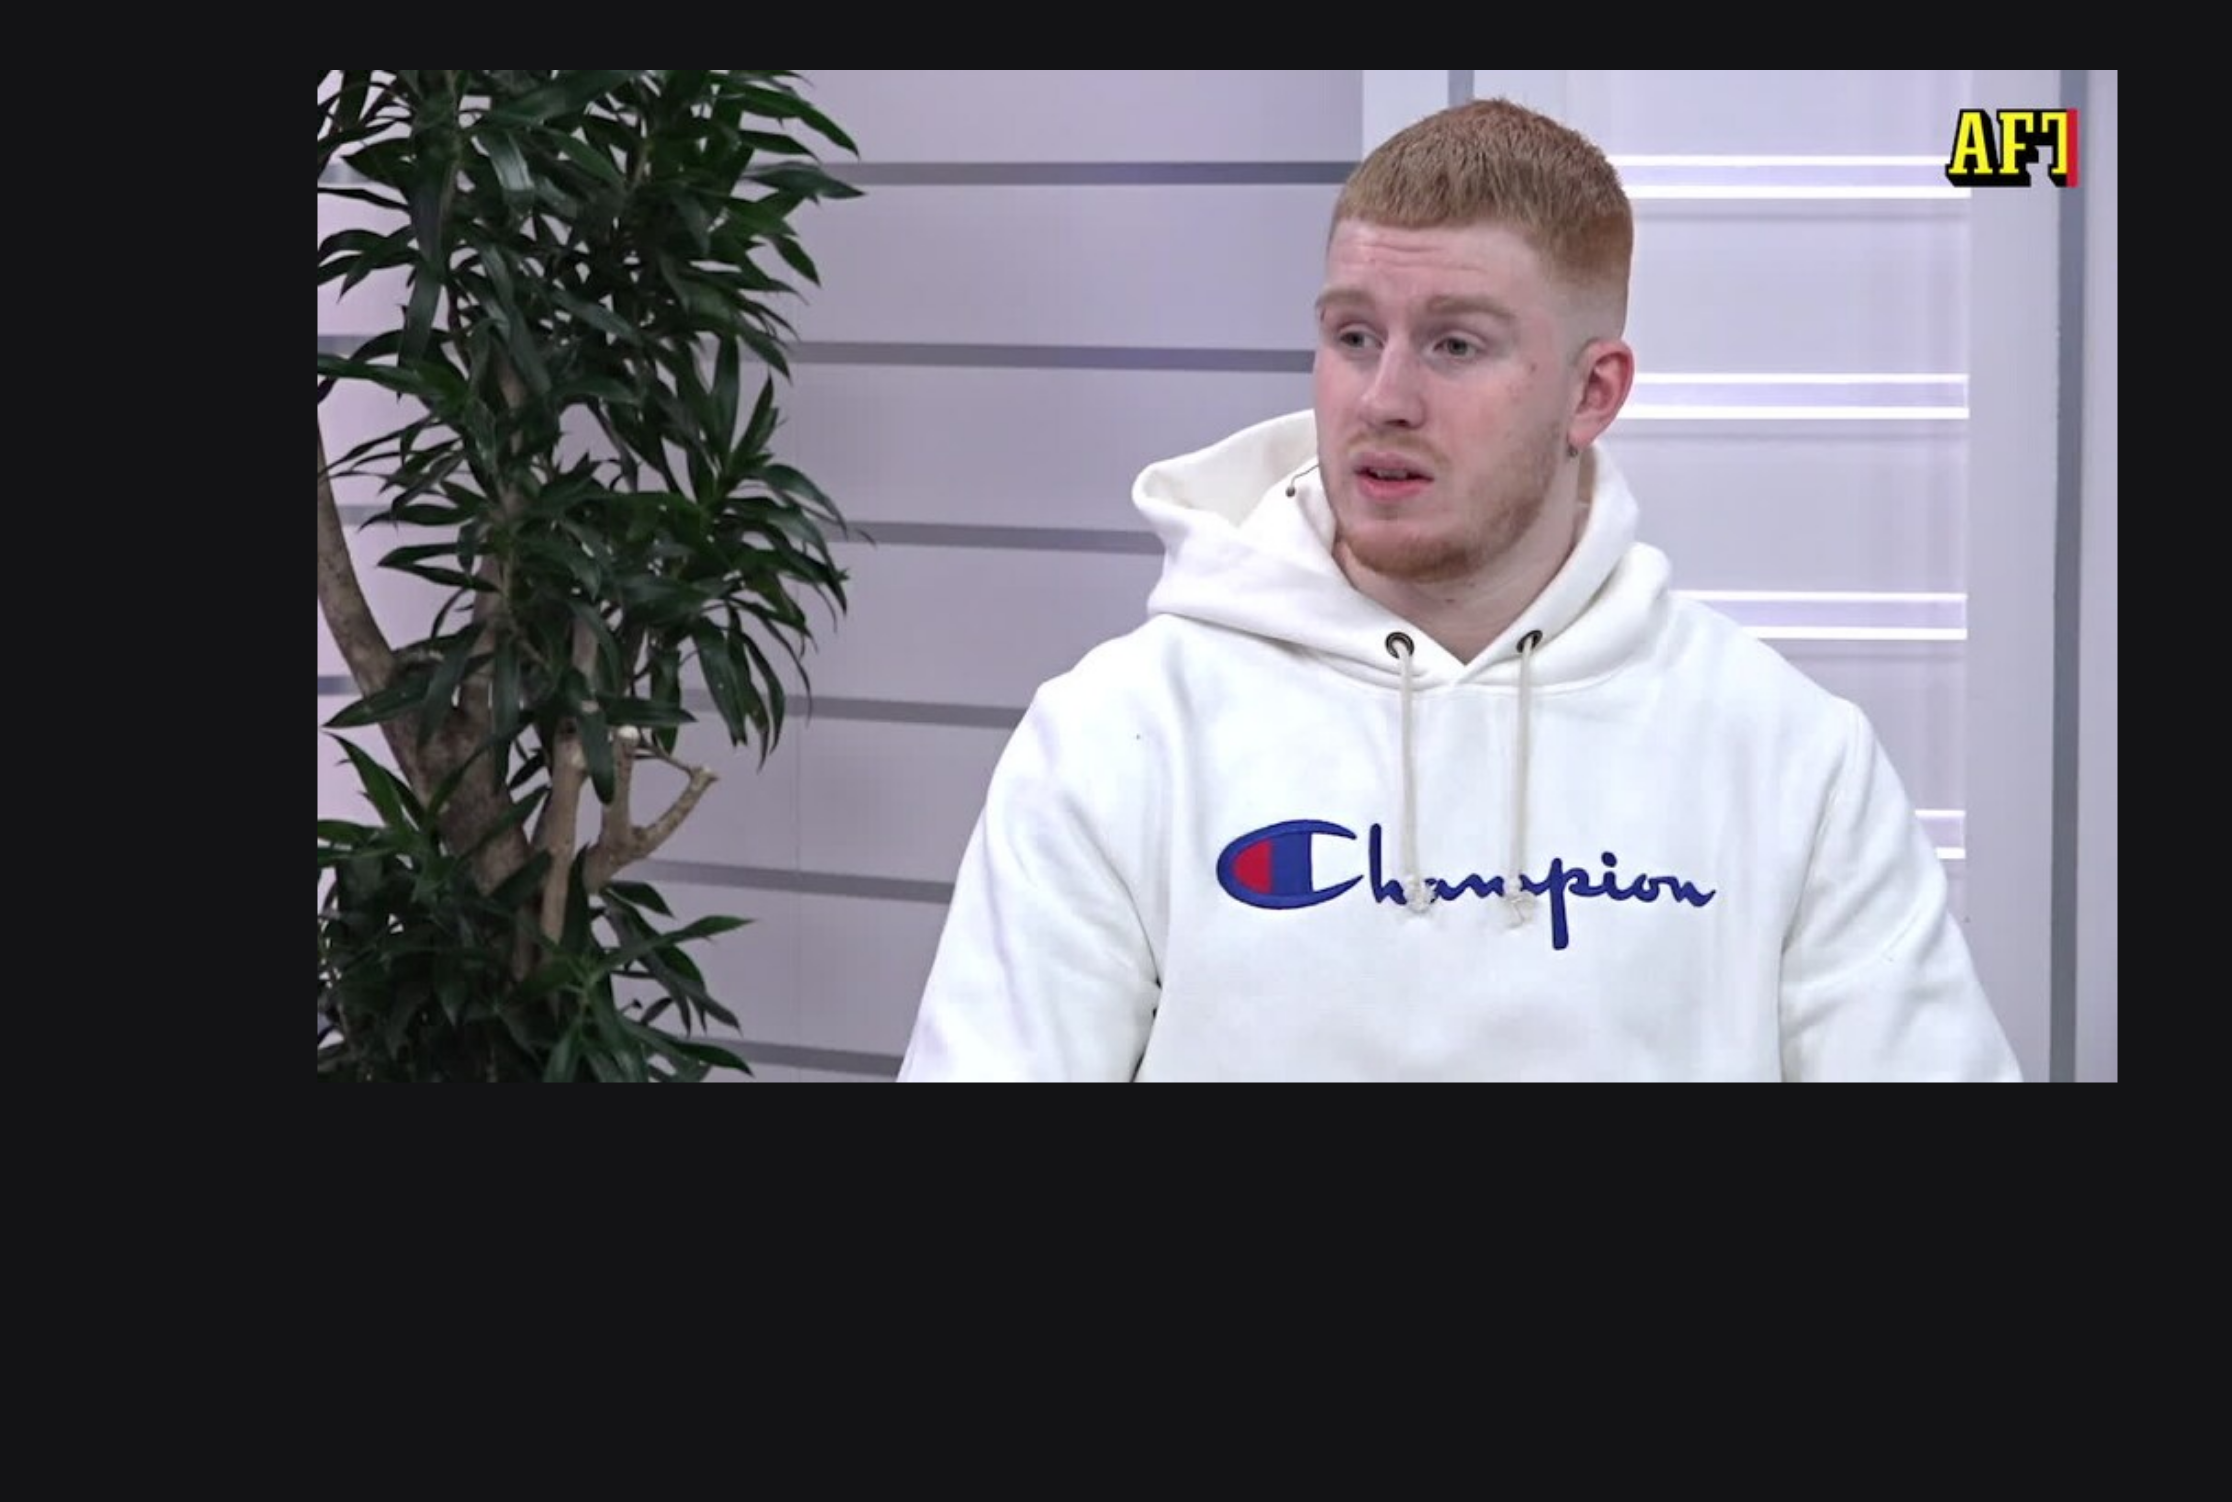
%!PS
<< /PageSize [2232 1502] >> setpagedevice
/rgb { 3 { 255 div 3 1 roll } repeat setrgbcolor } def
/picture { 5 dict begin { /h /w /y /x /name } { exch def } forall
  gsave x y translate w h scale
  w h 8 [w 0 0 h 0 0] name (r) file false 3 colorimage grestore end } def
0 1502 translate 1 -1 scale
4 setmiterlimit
19 19 21 rgb
0 0 2232 1502 rectfill
(img_01.rgb) 317 70 1801 1013 picture
showpage
